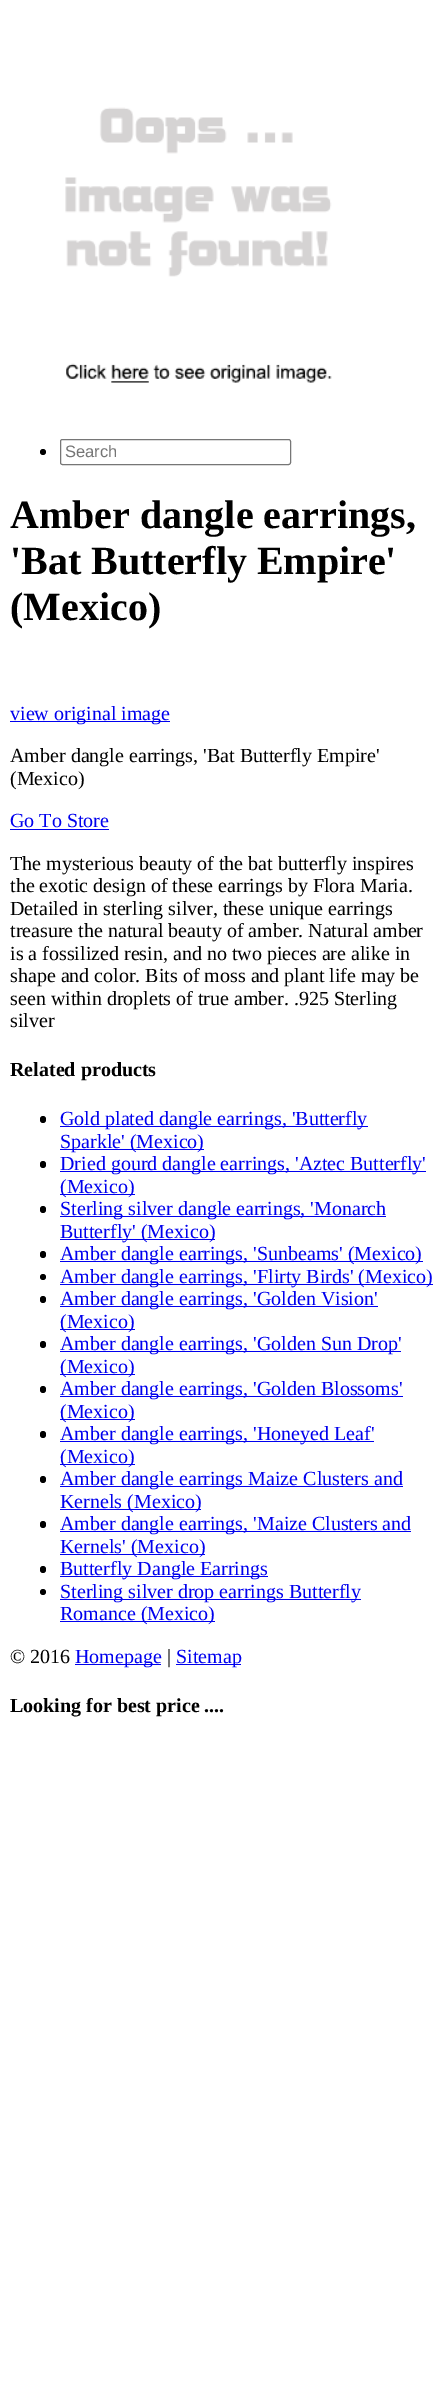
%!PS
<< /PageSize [445 2396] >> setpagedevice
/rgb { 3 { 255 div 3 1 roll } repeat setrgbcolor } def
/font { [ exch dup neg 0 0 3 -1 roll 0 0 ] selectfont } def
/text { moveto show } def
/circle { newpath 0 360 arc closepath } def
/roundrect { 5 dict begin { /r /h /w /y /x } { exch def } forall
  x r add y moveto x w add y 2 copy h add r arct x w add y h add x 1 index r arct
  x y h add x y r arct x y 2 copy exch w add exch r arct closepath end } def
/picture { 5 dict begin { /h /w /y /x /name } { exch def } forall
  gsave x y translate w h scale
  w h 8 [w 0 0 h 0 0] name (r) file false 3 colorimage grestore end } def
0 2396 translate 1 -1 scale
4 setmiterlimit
255 255 255 rgb
0 0 445 2396 rectfill
(img_01.rgb) 65 107 267 276 picture
0 0 0 rgb
43 452 3 circle fill
118 118 118 rgb
60.5 439.5 230 25 2 roundrect stroke
0 0 238 rgb
10 721 160 1 rectfill
10 829 99 1 rectfill
0 0 0 rgb
40 1116 6 7 3 roundrect fill
0 0 238 rgb
60 1126 308 1 rectfill
60 1149 144 1 rectfill
0 0 0 rgb
40 1161 6 7 3 roundrect fill
0 0 238 rgb
60 1171 366 1 rectfill
60 1194 75 1 rectfill
0 0 0 rgb
40 1206 6 7 3 roundrect fill
0 0 238 rgb
60 1216 326 1 rectfill
60 1239 155 1 rectfill
0 0 0 rgb
40 1251 6 7 3 roundrect fill
0 0 238 rgb
60 1261 363 1 rectfill
0 0 0 rgb
43 1277 3 circle fill
0 0 238 rgb
60 1284 373 1 rectfill
0 0 0 rgb
40 1296 6 7 3 roundrect fill
0 0 238 rgb
60 1306 318 1 rectfill
60 1329 75 1 rectfill
0 0 0 rgb
40 1341 6 7 3 roundrect fill
0 0 238 rgb
60 1351 341 1 rectfill
60 1374 75 1 rectfill
0 0 0 rgb
40 1386 6 7 3 roundrect fill
0 0 238 rgb
60 1396 343 1 rectfill
60 1419 75 1 rectfill
0 0 0 rgb
40 1431 6 7 3 roundrect fill
0 0 238 rgb
60 1441 314 1 rectfill
60 1464 75 1 rectfill
0 0 0 rgb
40 1476 6 7 3 roundrect fill
0 0 238 rgb
60 1486 343 1 rectfill
60 1509 141 1 rectfill
0 0 0 rgb
40 1521 6 7 3 roundrect fill
0 0 238 rgb
60 1531 351 1 rectfill
60 1554 145 1 rectfill
0 0 0 rgb
40 1566 6 7 3 roundrect fill
0 0 238 rgb
60 1576 208 1 rectfill
0 0 0 rgb
43 1592 3 circle fill
0 0 238 rgb
60 1599 301 1 rectfill
60 1621 155 1 rectfill
75 1664 86 1 rectfill
176 1664 65 1 rectfill
/LiberationSans-Regular 16.5 font
117 117 117 rgb
(Search) 65 457 text
/LiberationSerif-Bold 40 font
0 0 0 rgb
(Amber dangle earrings,) 10 528 text
('Bat Butterfly Empire') 10 574 text
(\(Mexico\)) 10 620 text
/LiberationSerif-Regular 20 font
0 0 238 rgb
(view original image) 10 720 text
0 0 0 rgb
(Amber dangle earrings, 'Bat Butterfly Empire') 10 762 text
(\(Mexico\)) 10 785 text
0 0 238 rgb
(Go To Store) 10 827 text
0 0 0 rgb
(The mysterious beauty of the bat butterfly inspires) 10 870 text
(the exotic design of these earrings by Flora Maria.) 10 892 text
(Detailed in sterling silver, these unique earrings) 10 915 text
(treasure the natural beauty of amber. Natural amber) 10 937 text
(is a fossilized resin, and no two pieces are alike in) 10 960 text
(shape and color. Bits of moss and plant life may be) 10 982 text
(seen within droplets of true amber. .925 Sterling) 10 1005 text
(silver) 10 1027 text
/LiberationSerif-Bold 20 font
(Related products) 10 1076 text
/LiberationSerif-Regular 20 font
0 0 238 rgb
(Gold plated dangle earrings, 'Butterfly) 60 1125 text
(Sparkle' \(Mexico\)) 60 1148 text
(Dried gourd dangle earrings, 'Aztec Butterfly') 60 1170 text
(\(Mexico\)) 60 1193 text
(Sterling silver dangle earrings, 'Monarch) 60 1215 text
(Butterfly' \(Mexico\)) 60 1238 text
(Amber dangle earrings, 'Sunbeams' \(Mexico\)) 60 1260 text
(Amber dangle earrings, 'Flirty Birds' \(Mexico\)) 60 1283 text
(Amber dangle earrings, 'Golden Vision') 60 1305 text
(\(Mexico\)) 60 1328 text
(Amber dangle earrings, 'Golden Sun Drop') 60 1350 text
(\(Mexico\)) 60 1373 text
(Amber dangle earrings, 'Golden Blossoms') 60 1395 text
(\(Mexico\)) 60 1418 text
(Amber dangle earrings, 'Honeyed Leaf') 60 1440 text
(\(Mexico\)) 60 1463 text
(Amber dangle earrings Maize Clusters and) 60 1485 text
(Kernels \(Mexico\)) 60 1508 text
(Amber dangle earrings, 'Maize Clusters and) 60 1530 text
(Kernels' \(Mexico\)) 60 1553 text
(Butterfly Dangle Earrings) 60 1575 text
(Sterling silver drop earrings Butterfly) 60 1598 text
(Romance \(Mexico\)) 60 1620 text
0 0 0 rgb
(© 2016) 10 1663 text
0 0 238 rgb
(Homepage) 75 1663 text
0 0 0 rgb
(|) 167 1663 text
0 0 238 rgb
(Sitemap) 176 1663 text
/LiberationSerif-Bold 20 font
0 0 0 rgb
(Looking for best price ....) 10 1712 text
showpage
